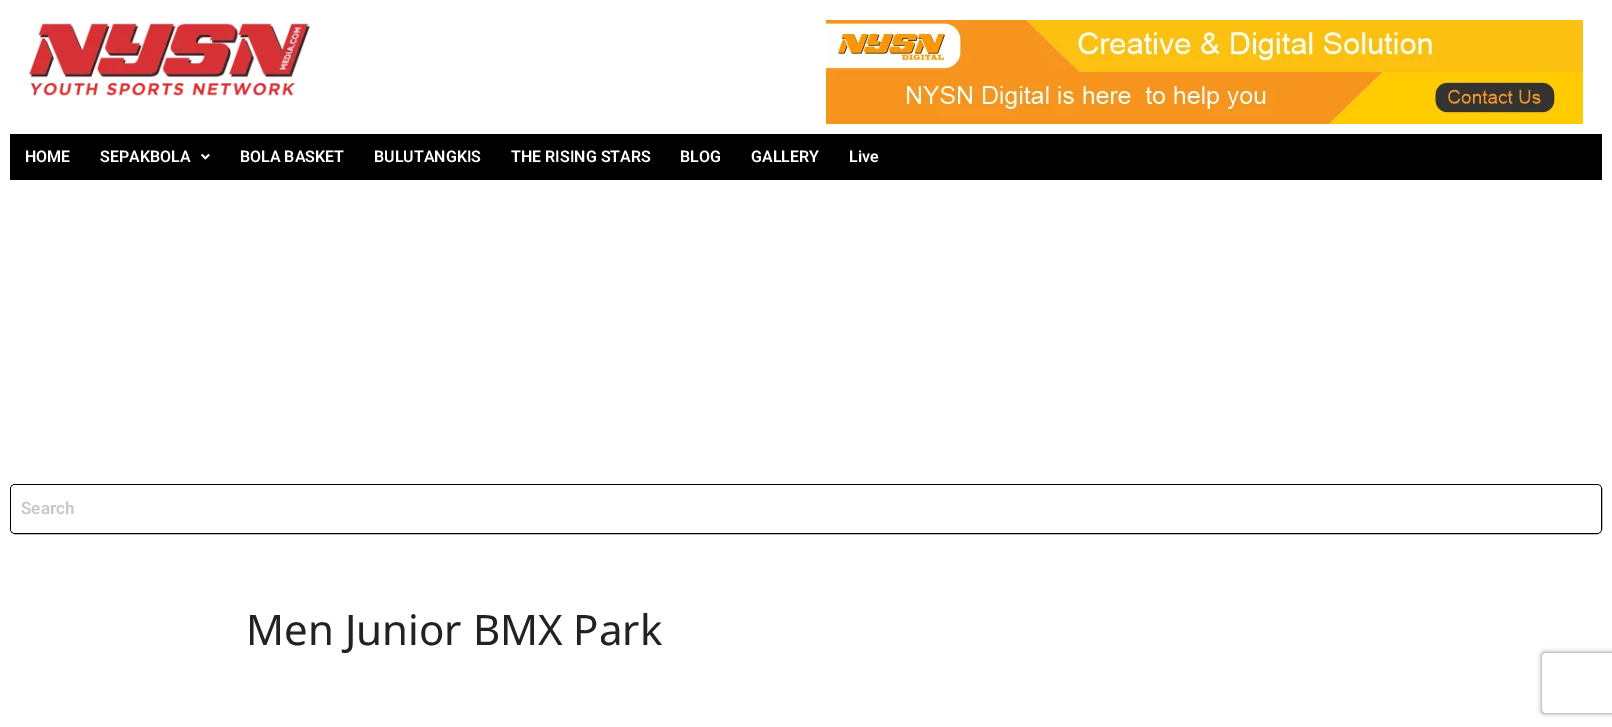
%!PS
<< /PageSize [1612 727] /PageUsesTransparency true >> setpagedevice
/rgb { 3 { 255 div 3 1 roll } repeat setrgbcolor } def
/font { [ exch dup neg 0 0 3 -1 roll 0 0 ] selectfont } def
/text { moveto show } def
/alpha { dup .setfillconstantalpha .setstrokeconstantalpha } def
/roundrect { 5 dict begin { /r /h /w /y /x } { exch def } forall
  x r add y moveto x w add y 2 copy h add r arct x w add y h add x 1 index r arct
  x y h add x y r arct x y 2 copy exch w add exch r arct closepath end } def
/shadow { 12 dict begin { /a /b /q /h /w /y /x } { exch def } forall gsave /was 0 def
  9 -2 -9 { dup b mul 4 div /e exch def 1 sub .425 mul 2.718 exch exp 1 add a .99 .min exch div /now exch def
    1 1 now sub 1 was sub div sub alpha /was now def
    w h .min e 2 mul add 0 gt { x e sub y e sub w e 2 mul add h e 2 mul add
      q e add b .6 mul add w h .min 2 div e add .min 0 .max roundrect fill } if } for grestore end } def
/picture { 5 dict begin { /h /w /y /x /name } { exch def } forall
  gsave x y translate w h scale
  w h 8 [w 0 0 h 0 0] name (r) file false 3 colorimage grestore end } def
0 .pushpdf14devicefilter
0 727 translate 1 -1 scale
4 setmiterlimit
255 255 255 rgb
0 0 1612 727 rectfill
(img_01.rgb) 29 23 281 73 picture
(img_02.rgb) 826 20 757 104 picture
0 0 0 rgb
10 134 1592 46 rectfill
(img_03.rgb) 201 154 9 6 picture
10.5 484.5 1591 49 4.5 roundrect stroke
255 255 255 rgb
11 485 1590 48 4 roundrect fill
gsave
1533 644 moveto 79 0 rlineto 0 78 rlineto -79 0 rlineto closepath 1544 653 moveto 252 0 rlineto 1 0 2 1 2 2 rcurveto 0 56 rlineto 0 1 -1 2 -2 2 rcurveto -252 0 rlineto -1 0 -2 -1 -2 -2 rcurveto 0 -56 rlineto 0 -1 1 -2 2 -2 rcurveto closepath eoclip newpath
128 128 128 rgb
1542 653 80 60 2 2.5 1 shadow
grestore
/Roboto-SemiBold 16 font
(HOME) 25 162 text
(SEPAKBOLA) 100 162 text
(BOLA BASKET) 240 162 text
(BULUTANGKIS) 374 162 text
(THE RISING STARS) 511 162 text
(BLOG) 680 162 text
(GALLERY) 751 162 text
(Live) 849 162 text
/Roboto-SemiBold 17 font
199 199 199 rgb
(Search) 21 514 text
/NotoSans-Regular 42 font
34 34 34 rgb
(Men Junior BMX Park) 246 645 text
.poppdf14devicefilter showpage
